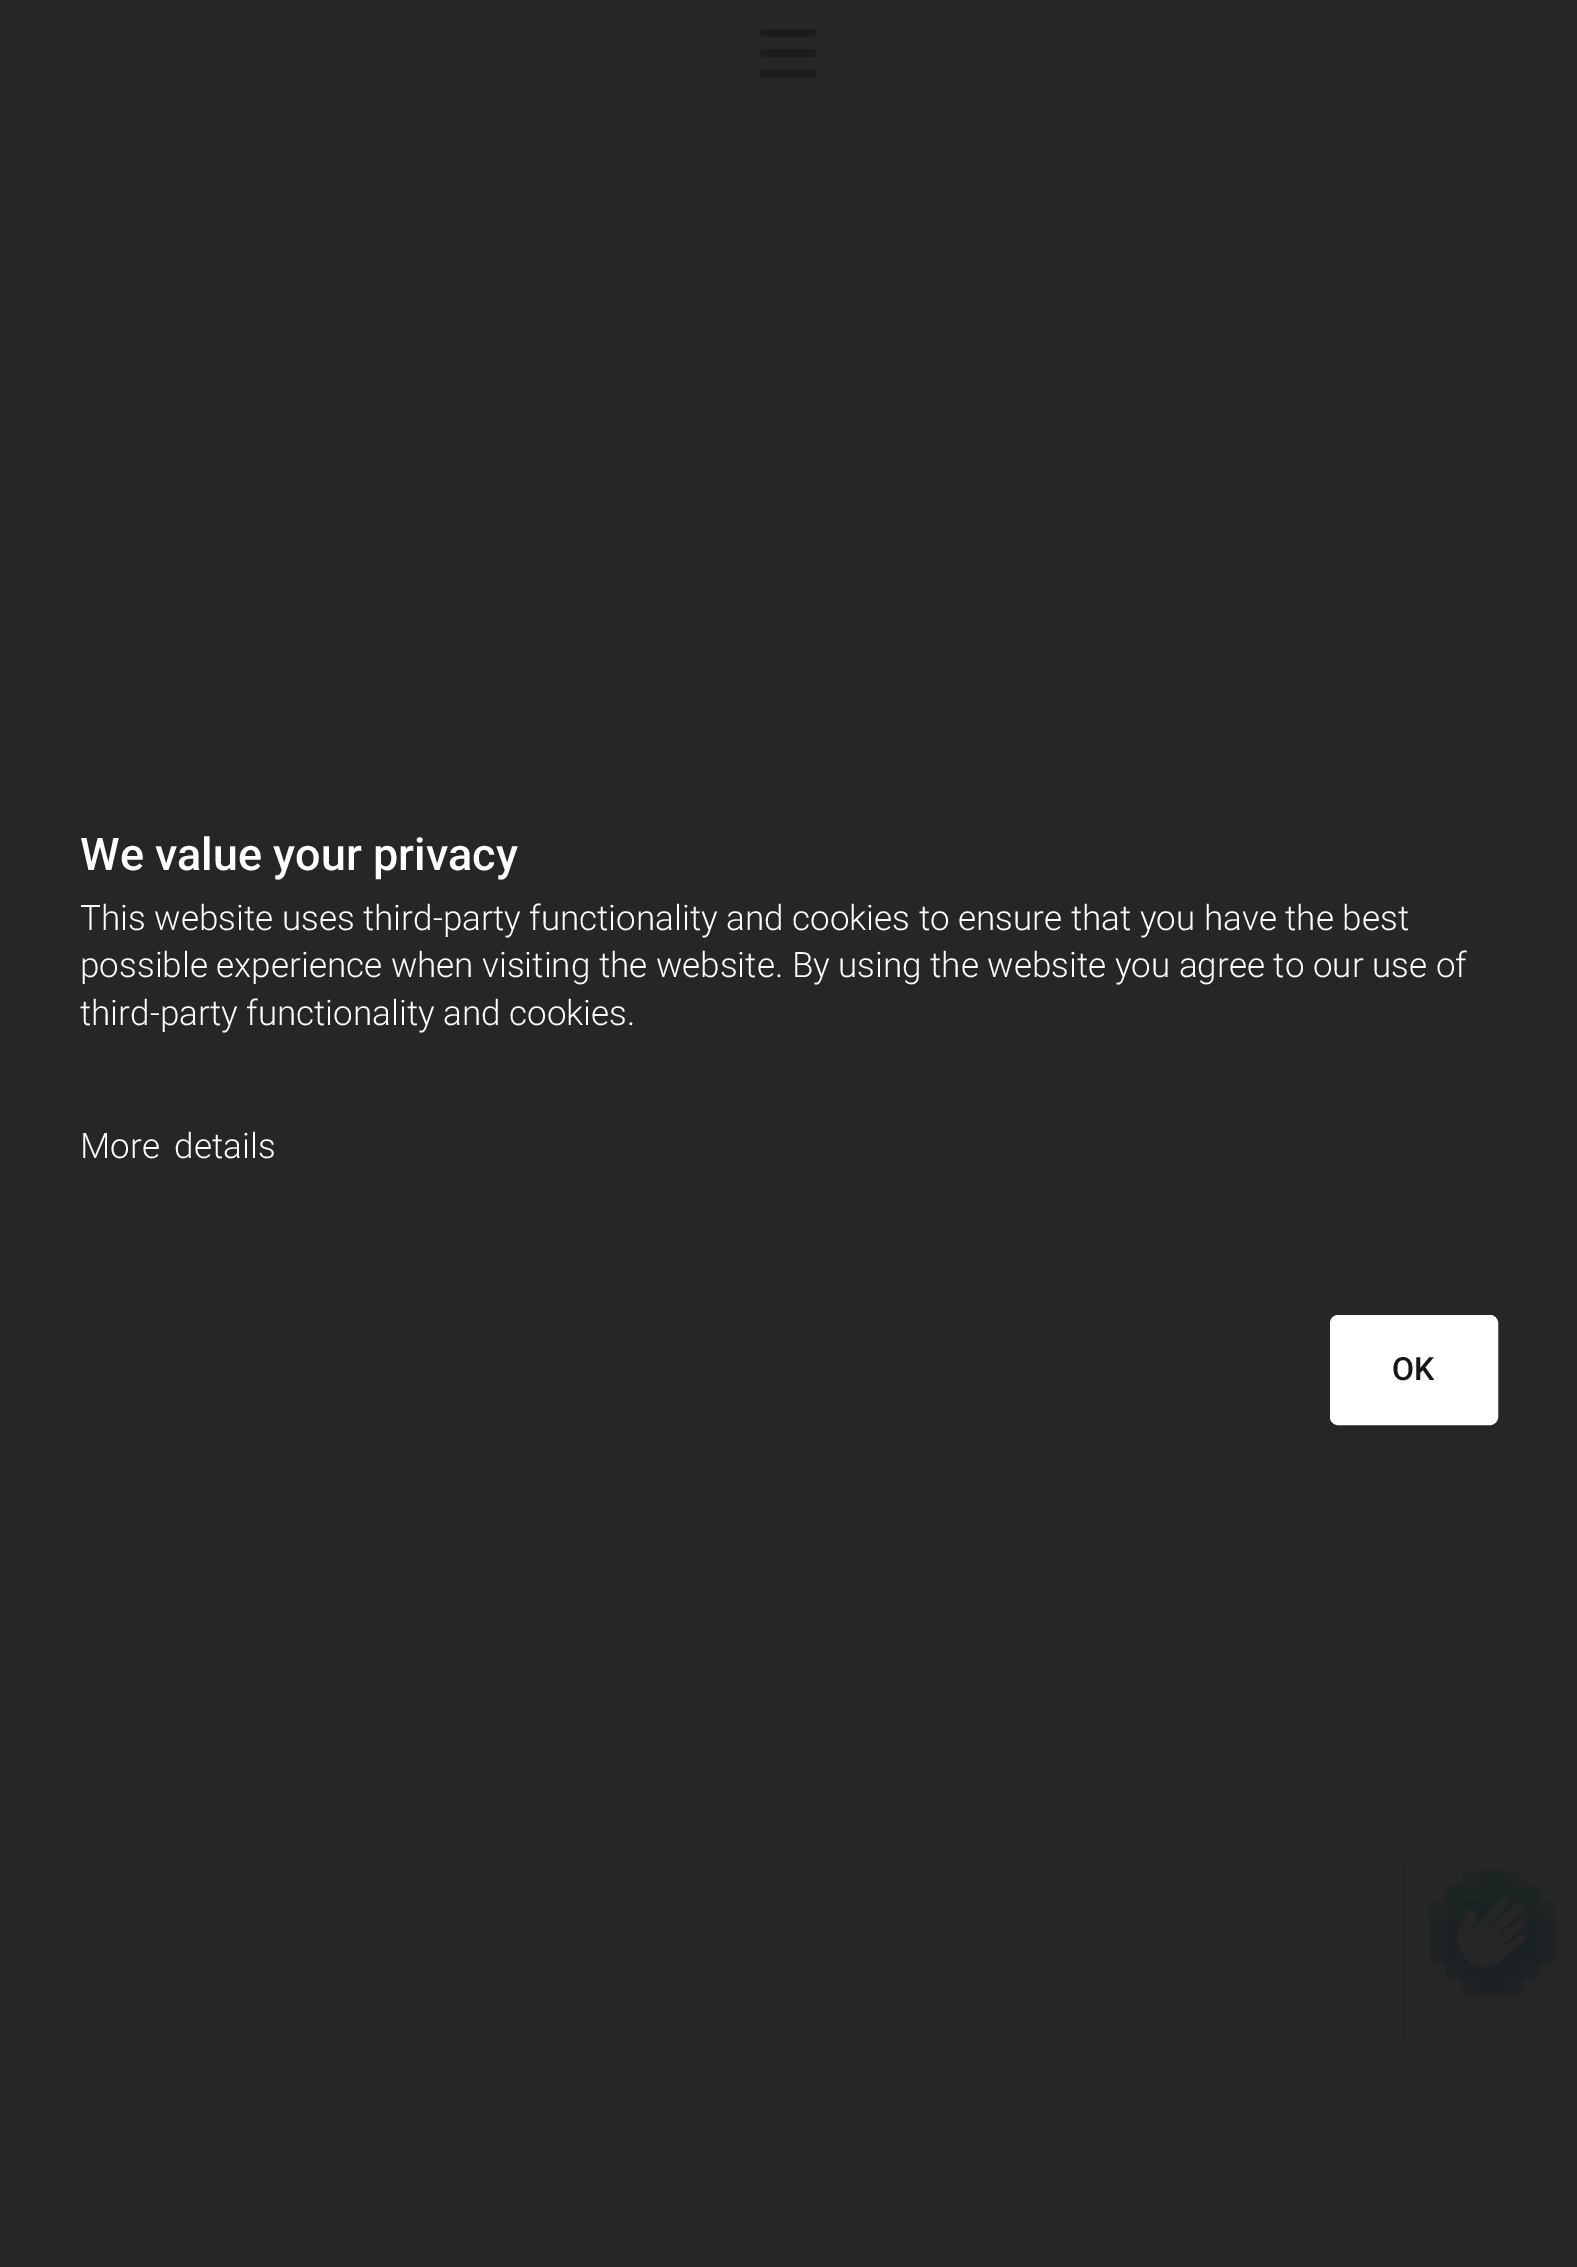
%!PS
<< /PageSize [1577 2267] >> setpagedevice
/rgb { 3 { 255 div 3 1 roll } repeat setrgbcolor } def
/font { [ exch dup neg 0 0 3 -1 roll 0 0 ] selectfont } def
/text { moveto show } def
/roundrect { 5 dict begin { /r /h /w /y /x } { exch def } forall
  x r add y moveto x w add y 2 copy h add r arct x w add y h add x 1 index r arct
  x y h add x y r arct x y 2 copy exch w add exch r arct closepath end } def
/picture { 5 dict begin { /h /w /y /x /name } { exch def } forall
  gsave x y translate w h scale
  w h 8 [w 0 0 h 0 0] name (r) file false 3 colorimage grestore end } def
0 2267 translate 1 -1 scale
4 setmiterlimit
38 38 38 rgb
0 0 1577 2267 rectfill
(img_01.rgb) 760 28 57 50 picture
35 35 36 rgb
1412 1855 moveto 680 0 rlineto 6 0 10 4 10 10 rcurveto 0 167 rlineto 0 6 -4 10 -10 10 rcurveto -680 0 rlineto -5 0 -10 -4 -10 -10 rcurveto 0 -167 rlineto 0 -6 5 -10 10 -10 rcurveto closepath 1412 1858 moveto 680 0 rlineto 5 0 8 3 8 7 rcurveto 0 167 rlineto 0 6 -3 10 -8 10 rcurveto -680 0 rlineto -4 0 -7 -4 -7 -10 rcurveto 0 -167 rlineto 0 -4 3 -7 7 -7 rcurveto closepath eofill
(img_02.rgb) 1430 1870 125 125 picture
255 255 255 rgb
1331.5 1316.5 165 107 6.5 roundrect gsave fill grestore
3 setlinewidth
stroke
/Roboto-Medium 45 font
(We value your privacy) 80 870 text
/Roboto-Light 35 font
(This website uses third-party functionality and cookies to ensure that you have the best) 80 930 text
(possible experience when visiting the website. By using the website you agree to our use of) 80 977 text
(third-party functionality and cookies.) 80 1025 text
80 1158 moveto 6 0 32 (More details) widthshow
/Roboto-Medium 32 font
24 24 24 rgb
(OK) 1392 1380 text
showpage
